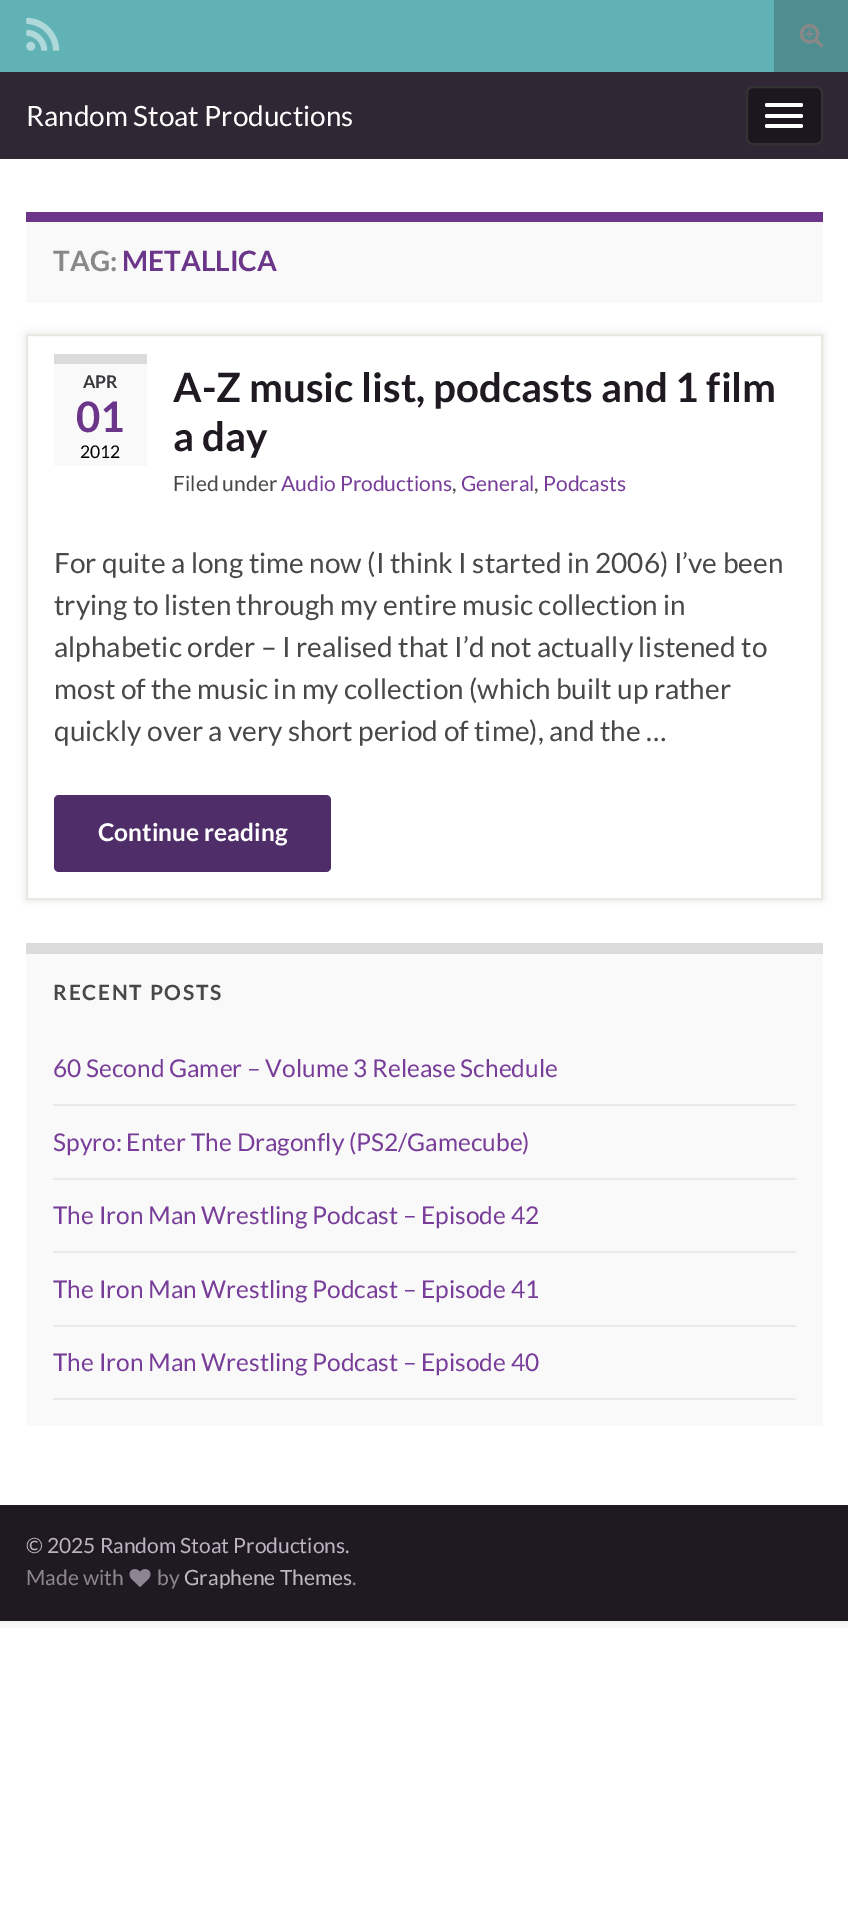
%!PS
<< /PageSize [848 1925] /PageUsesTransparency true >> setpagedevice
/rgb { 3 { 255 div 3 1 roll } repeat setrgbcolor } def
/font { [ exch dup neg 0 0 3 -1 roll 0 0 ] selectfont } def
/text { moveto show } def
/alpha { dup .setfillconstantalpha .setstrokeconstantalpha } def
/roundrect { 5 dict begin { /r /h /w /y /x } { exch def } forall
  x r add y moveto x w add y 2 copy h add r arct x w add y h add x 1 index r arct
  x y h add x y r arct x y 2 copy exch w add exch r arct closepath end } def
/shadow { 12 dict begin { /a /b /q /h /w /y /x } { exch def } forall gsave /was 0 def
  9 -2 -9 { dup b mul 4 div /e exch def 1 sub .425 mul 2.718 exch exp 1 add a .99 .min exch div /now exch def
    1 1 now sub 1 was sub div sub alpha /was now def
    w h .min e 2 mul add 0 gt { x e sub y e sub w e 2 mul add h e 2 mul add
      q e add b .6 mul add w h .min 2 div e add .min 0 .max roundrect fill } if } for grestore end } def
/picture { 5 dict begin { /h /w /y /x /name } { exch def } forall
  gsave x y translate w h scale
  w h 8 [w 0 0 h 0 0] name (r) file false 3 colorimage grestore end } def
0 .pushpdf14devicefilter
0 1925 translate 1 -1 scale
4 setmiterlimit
255 255 255 rgb
0 0 848 1925 rectfill
gsave
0 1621 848 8 rectclip
0 0 0 rgb
0 0 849 1621 0 9 0.1 shadow
grestore
97 178 181 rgb
0 0 774 72 rectfill
(img_01.rgb) 26 17 34 34 picture
78 142 145 rgb
774 0 74 72 rectfill
(img_02.rgb) 799 24 25 24 picture
47 39 51 rgb
0 72 848 87 rectfill
28 23 31 rgb
747 87 75 57 6 roundrect gsave fill grestore
51 51 51 rgb
2 setlinewidth
stroke
255 255 255 rgb
765 103 38 4 2 roundrect fill
765 114 38 4 2 roundrect fill
765 124 38 4 2 roundrect fill
249 249 249 rgb
26 222 797 81 rectfill
107 53 137 rgb
26 212 797 10 rectfill
0 0 0 rgb
26 334 797 566 0 4.5 0.1 shadow
255 255 255 rgb
27 335 moveto 795 0 rlineto 0 564 rlineto -795 0 rlineto closepath gsave fill grestore
233 232 227 rgb
stroke
249 249 249 rgb
54 364 93 102 rectfill
219 219 219 rgb
54 354 93 10 rectfill
79 45 105 rgb
54 795 277 77 5 roundrect fill
249 249 249 rgb
26 954 797 472 rectfill
219 219 219 rgb
26 943 797 11 rectfill
233 233 233 rgb
53 1104 743 2 rectfill
53 1178 743 2 rectfill
53 1251 743 2 rectfill
53 1325 743 2 rectfill
53 1398 743 2 rectfill
31 26 34 rgb
0 1505 848 116 rectfill
(img_03.rgb) 129 1569 22 18 picture
/Lato-Regular 28 font
255 255 255 rgb
(Random Stoat Productions) 26 126 text
/Lato-Bold 28 font
136 136 136 rgb
(TAG:) 53 271 text
107 53 137 rgb
(METALLICA) 122 271 text
/Lato-Bold 17.5 font
59 56 61 rgb
(APR) 83 388 text
/Lato-Bold 42 font
107 53 137 rgb
(01) 76 432 text
/Lato-Regular 17.5 font
0 0 0 rgb
(2012) 80 458 text
/Lato-Bold 40.3 font
31 26 34 rgb
(A-Z music list, podcasts and 1 film) 173 402 text
(a day) 173 451 text
/Lato-Regular 21 font
74 71 75 rgb
(Filed under) 173 491 text
120 61 152 rgb
(Audio Productions) 281 491 text
74 71 75 rgb
(,) 452 491 text
120 61 152 rgb
(General) 461 491 text
74 71 75 rgb
(,) 534 491 text
120 61 152 rgb
(Podcasts) 543 491 text
/Lato-Regular 28 font
74 71 75 rgb
(For quite a long time now \(I think I started in 2006\) I’ve been) 54 573 text
(trying to listen through my entire music collection in) 54 615 text
(alphabetic order – I realised that I’d not actually listened to) 54 657 text
(most of the music in my collection \(which built up rather) 54 699 text
(quickly over a very short period of time\), and the …) 54 741 text
/Lato-Bold 24.5 font
255 255 255 rgb
(Continue reading) 98 841 text
/Lato-Bold 21 font
74 71 75 rgb
53 1000 moveto 1.75 0 (RECENT POSTS) ashow
/Lato-Regular 24.5 font
120 61 152 rgb
(60 Second Gamer – Volume 3 Release Schedule) 53 1077 text
(Spyro: Enter The Dragonfly \(PS2/Gamecube\)) 53 1151 text
gsave
53 1180 743 71 rectclip
(The Iron Man Wrestling Podcast – Episode 42) 53 1224 text
grestore
gsave
53 1253 743 72 rectclip
(The Iron Man Wrestling Podcast – Episode 41) 53 1298 text
grestore
gsave
53 1327 743 71 rectclip
(The Iron Man Wrestling Podcast – Episode 40) 53 1371 text
grestore
/Lato-Regular 21 font
188 180 193 rgb
(© 2025 Random Stoat Productions.) 26 1553 text
141 134 145 rgb
(Made with) 26 1585 text
(by) 157 1585 text
188 186 189 rgb
(Graphene Themes) 184 1585 text
141 134 145 rgb
(.) 352 1585 text
.poppdf14devicefilter showpage
